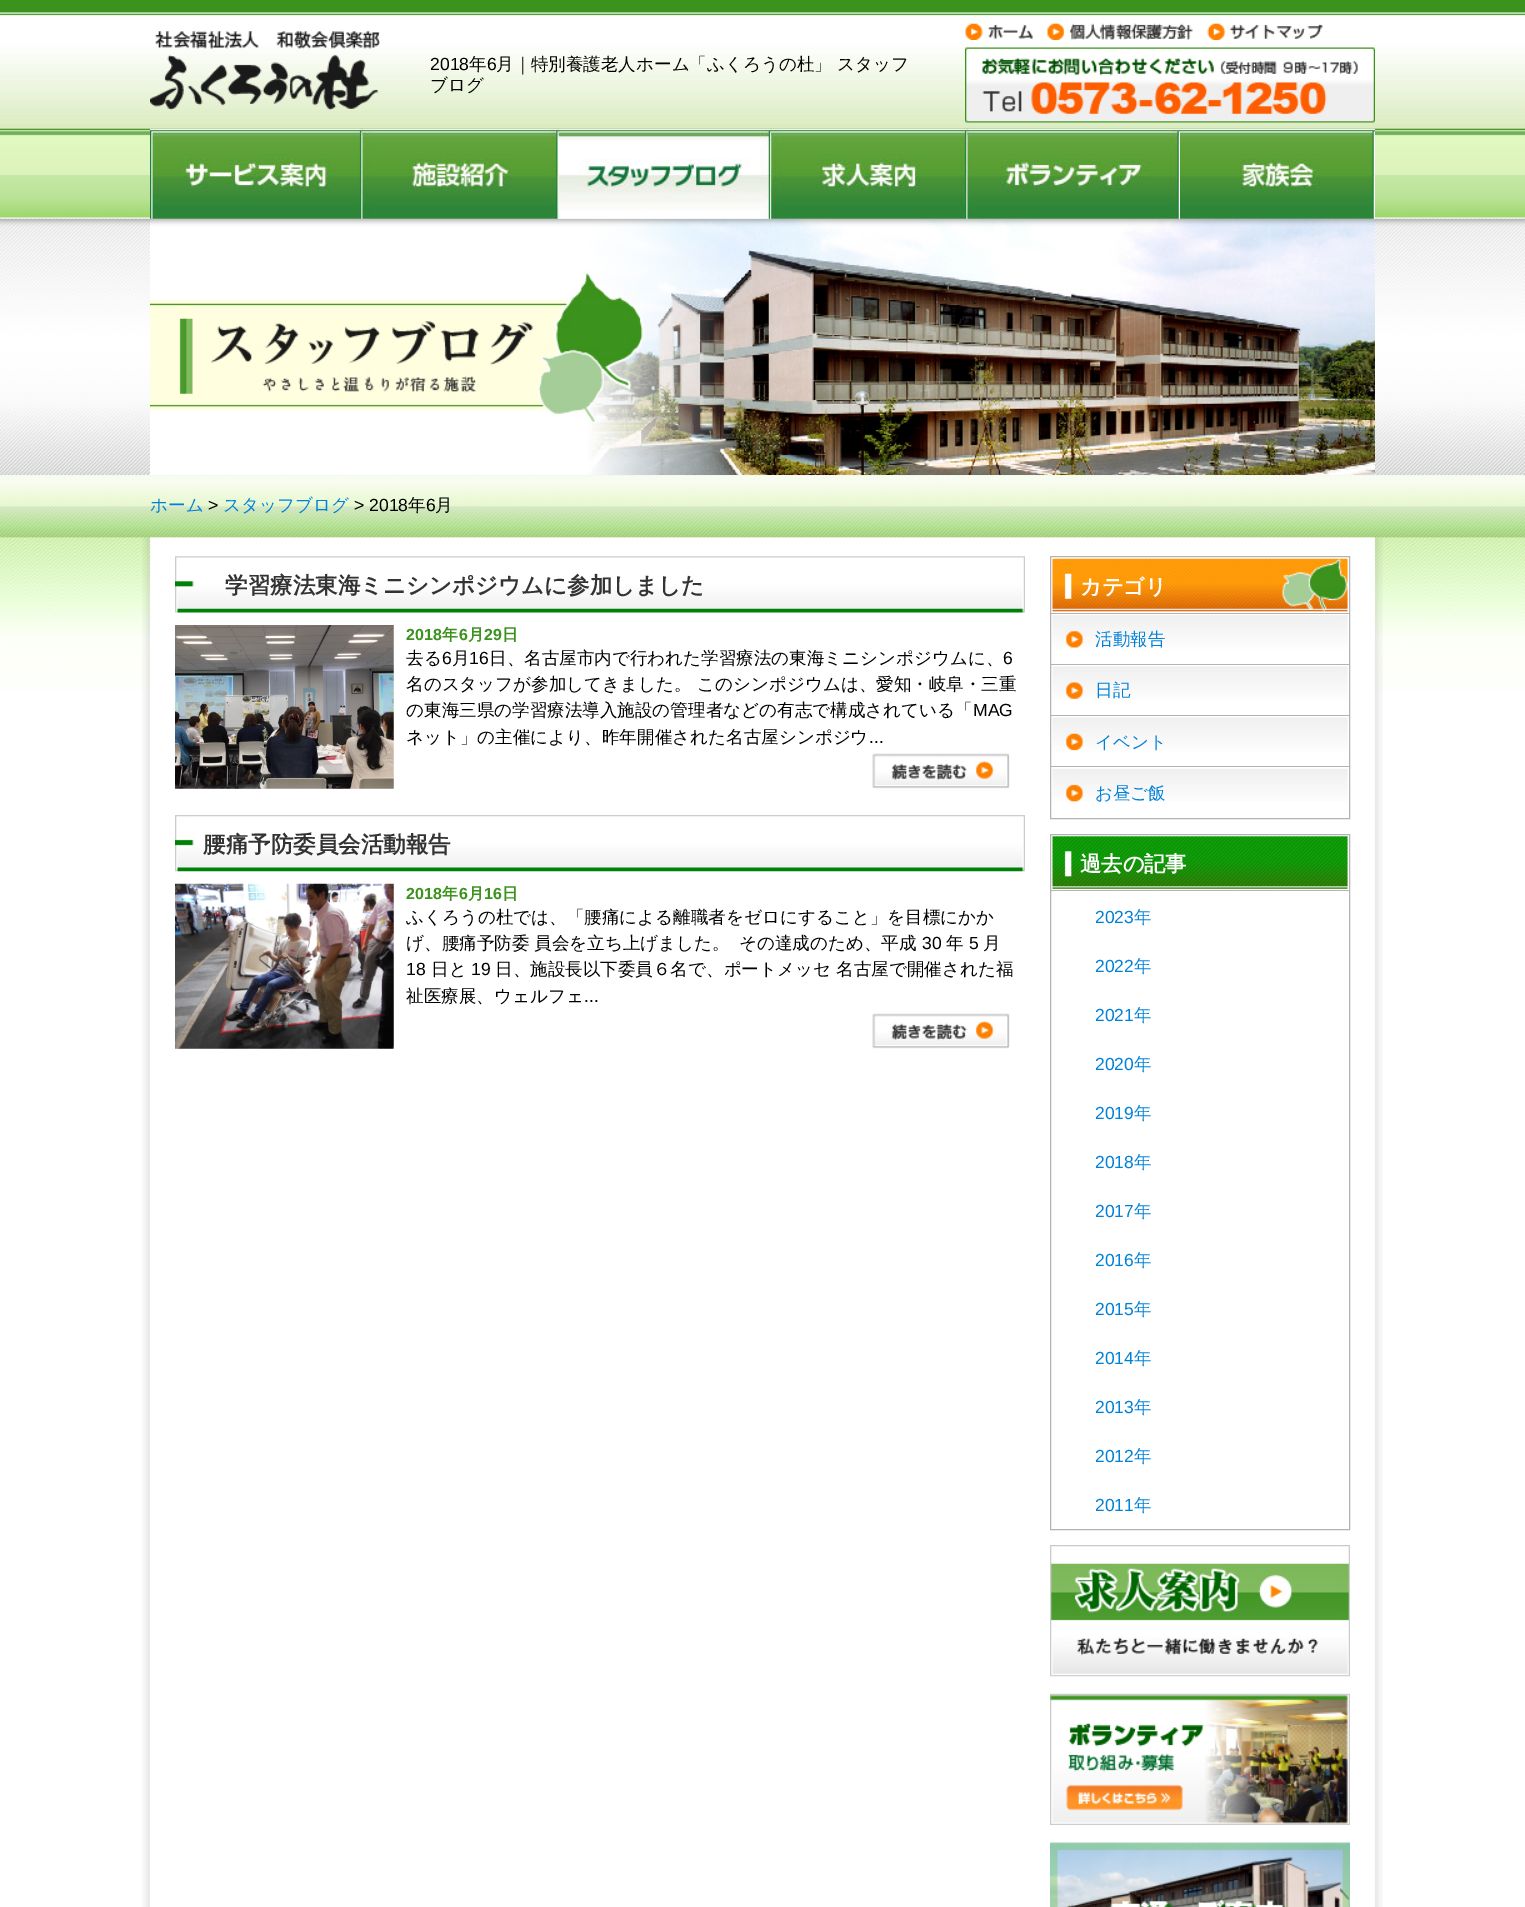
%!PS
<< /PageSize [1525 1907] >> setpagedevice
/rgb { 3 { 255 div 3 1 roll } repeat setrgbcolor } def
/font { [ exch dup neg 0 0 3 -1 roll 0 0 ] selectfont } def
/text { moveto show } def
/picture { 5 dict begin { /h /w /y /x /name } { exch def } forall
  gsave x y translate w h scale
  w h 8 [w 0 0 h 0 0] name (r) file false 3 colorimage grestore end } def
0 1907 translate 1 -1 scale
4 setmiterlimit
255 255 255 rgb
0 0 1525 1907 rectfill
(img_01.rgb) 0 0 1525 538 picture
(img_02.rgb) 150 31 230 79 picture
(img_03.rgb) 965 23 68 17 picture
(img_04.rgb) 1047 23 146 17 picture
(img_05.rgb) 1207 23 116 17 picture
(img_06.rgb) 965 47 410 76 picture
(img_13.rgb) 150 218 1225 257 picture
(img_07.rgb) 150 128 213 91 picture
(img_08.rgb) 362 128 197 91 picture
(img_09.rgb) 558 128 214 91 picture
(img_10.rgb) 771 128 197 91 picture
(img_11.rgb) 967 128 213 91 picture
(img_12.rgb) 1180 128 195 91 picture
(img_14.rgb) 0 537 1525 153 picture
(img_15.rgb) 142 537 1241 1370 picture
(img_16.rgb) 175 556 850 57 picture
(img_17.rgb) 175 625 219 164 picture
(img_18.rgb) 872 753 138 36 picture
(img_19.rgb) 175 815 850 57 picture
(img_20.rgb) 175 883 219 166 picture
(img_18.rgb) 872 1013 138 36 picture
179 179 179 rgb
1050.5 556.5 299 262 rectstroke
(img_21.rgb) 1052 558 296 54 picture
(img_22.rgb) 1052 615 296 34 picture
1051 613 298 1 rectfill
(img_23.rgb) 1052 666 296 34 picture
1051 664 298 1 rectfill
(img_24.rgb) 1052 717 296 34 picture
1051 715 298 1 rectfill
(img_25.rgb) 1052 768 296 34 picture
1051 766 298 1 rectfill
1050.5 834.5 299 695 rectstroke
(img_26.rgb) 1052 836 296 53 picture
1051 890 299 1 rectfill
(img_27.rgb) 1050 1545 300 132 picture
(img_28.rgb) 1050 1693 300 132 picture
(img_29.rgb) 1050 1842 300 65 picture
/LiberationSans-Regular 17.55 font
0 0 0 rgb
(2018) 430 70 text
/WenQuanYiZenHei-Medium 17.55 font
(年) 469 70 text
/LiberationSans-Regular 17.55 font
(6) 487 70 text
/WenQuanYiZenHei-Medium 17.55 font
(月｜特別養護老人ホーム「ふくろうの杜」) 496 70 text
(スタッフ) 837 70 text
(ブログ) 430 91 text
0 129 216 rgb
(ホーム) 150 511 text
/LiberationSans-Regular 17.55 font
0 0 0 rgb
(>) 208 511 text
/WenQuanYiZenHei-Medium 17.55 font
0 129 216 rgb
(スタッフブログ) 223 511 text
/LiberationSans-Regular 17.55 font
0 0 0 rgb
(> 2018) 354 511 text
/WenQuanYiZenHei-Medium 17.55 font
(年) 408 511 text
/LiberationSans-Regular 17.55 font
(6) 426 511 text
/WenQuanYiZenHei-Medium 17.55 font
(月) 435 511 text
/WenQuanYiZenHei-Bold 22.5 font
51 51 51 rgb
(学習療法東海ミニシンポジウムに参加しました) 225 593 text
/LiberationSans-Bold 16 font
59 146 28 rgb
(2018) 406 640 text
/WenQuanYiZenHei-Bold 16 font
(年) 442 640 text
/LiberationSans-Bold 16 font
(6) 459 640 text
/WenQuanYiZenHei-Bold 16 font
(月) 468 640 text
/LiberationSans-Bold 16 font
(29) 484 640 text
/WenQuanYiZenHei-Bold 16 font
(日) 502 640 text
/WenQuanYiZenHei-Medium 17.55 font
0 0 0 rgb
(去る) 406 664 text
/LiberationSans-Regular 17.55 font
(6) 442 664 text
/WenQuanYiZenHei-Medium 17.55 font
(月) 452 664 text
/LiberationSans-Regular 17.55 font
(16) 469 664 text
/WenQuanYiZenHei-Medium 17.55 font
(日、名古屋市内で行われた学習療法の東海ミニシンポジウムに、) 489 664 text
/LiberationSans-Regular 17.55 font
(6) 1003 664 text
/WenQuanYiZenHei-Medium 17.55 font
(名のスタッフが参加してきました。) 406 690 text
(このシンポジウムは、愛知・岐阜・三重) 697 690 text
(の東海三県の学習療法導入施設の管理者などの有志で構成されている「) 406 716 text
/LiberationSans-Regular 17.55 font
(MAG) 973 716 text
/WenQuanYiZenHei-Medium 17.55 font
(ネット」の主催により、昨年開催された名古屋シンポジウ) 406 743 text
/LiberationSans-Regular 17.55 font
(...) 869 743 text
/WenQuanYiZenHei-Bold 22.5 font
51 51 51 rgb
(腰痛予防委員会活動報告) 203 852 text
/LiberationSans-Bold 16 font
59 146 28 rgb
(2018) 406 899 text
/WenQuanYiZenHei-Bold 16 font
(年) 442 899 text
/LiberationSans-Bold 16 font
(6) 459 899 text
/WenQuanYiZenHei-Bold 16 font
(月) 468 899 text
/LiberationSans-Bold 16 font
(16) 484 899 text
/WenQuanYiZenHei-Bold 16 font
(日) 502 899 text
/WenQuanYiZenHei-Medium 17.55 font
0 0 0 rgb
(ふくろうの杜では、「腰痛による離職者をゼロにすること」を目標にかか) 406 923 text
(げ、腰痛予防委) 406 949 text
(員会を立ち上げました。) 534 949 text
(その達成のため、平成) 739 949 text
/LiberationSans-Regular 17.55 font
(30) 922 949 text
/WenQuanYiZenHei-Medium 17.55 font
(年) 946 949 text
/LiberationSans-Regular 17.55 font
(5) 969 949 text
/WenQuanYiZenHei-Medium 17.55 font
(月) 983 949 text
/LiberationSans-Regular 17.55 font
(18) 406 975 text
/WenQuanYiZenHei-Medium 17.55 font
(日と) 431 975 text
/LiberationSans-Regular 17.55 font
(19) 471 975 text
/WenQuanYiZenHei-Medium 17.55 font
(日、施設長以下委員６名で、ポートメッセ) 495 975 text
(名古屋で開催された福) 836 975 text
(祉医療展、ウェルフェ) 406 1002 text
/LiberationSans-Regular 17.55 font
(...) 584 1002 text
/WenQuanYiZenHei-Bold 21.25 font
255 255 255 rgb
(カテゴリ) 1080 594 text
/WenQuanYiZenHei-Medium 17.5 font
0 129 216 rgb
(活動報告) 1095 645 text
(日記) 1095 696 text
(イベント) 1095 748 text
(お昼ご飯) 1095 799 text
/WenQuanYiZenHei-Bold 21.25 font
255 255 255 rgb
(過去の記事) 1080 871 text
/LiberationSans-Regular 17.5 font
0 129 216 rgb
(2023) 1095 923 text
/WenQuanYiZenHei-Medium 17.5 font
(年) 1134 923 text
/LiberationSans-Regular 17.5 font
(2022) 1095 972 text
/WenQuanYiZenHei-Medium 17.5 font
(年) 1134 972 text
/LiberationSans-Regular 17.5 font
(2021) 1095 1021 text
/WenQuanYiZenHei-Medium 17.5 font
(年) 1134 1021 text
/LiberationSans-Regular 17.5 font
(2020) 1095 1070 text
/WenQuanYiZenHei-Medium 17.5 font
(年) 1134 1070 text
/LiberationSans-Regular 17.5 font
(2019) 1095 1119 text
/WenQuanYiZenHei-Medium 17.5 font
(年) 1134 1119 text
/LiberationSans-Regular 17.5 font
(2018) 1095 1168 text
/WenQuanYiZenHei-Medium 17.5 font
(年) 1134 1168 text
/LiberationSans-Regular 17.5 font
(2017) 1095 1217 text
/WenQuanYiZenHei-Medium 17.5 font
(年) 1134 1217 text
/LiberationSans-Regular 17.5 font
(2016) 1095 1266 text
/WenQuanYiZenHei-Medium 17.5 font
(年) 1134 1266 text
/LiberationSans-Regular 17.5 font
(2015) 1095 1315 text
/WenQuanYiZenHei-Medium 17.5 font
(年) 1134 1315 text
/LiberationSans-Regular 17.5 font
(2014) 1095 1364 text
/WenQuanYiZenHei-Medium 17.5 font
(年) 1134 1364 text
/LiberationSans-Regular 17.5 font
(2013) 1095 1413 text
/WenQuanYiZenHei-Medium 17.5 font
(年) 1134 1413 text
/LiberationSans-Regular 17.5 font
(2012) 1095 1462 text
/WenQuanYiZenHei-Medium 17.5 font
(年) 1134 1462 text
/LiberationSans-Regular 17.5 font
(2011) 1095 1511 text
/WenQuanYiZenHei-Medium 17.5 font
(年) 1134 1511 text
showpage
